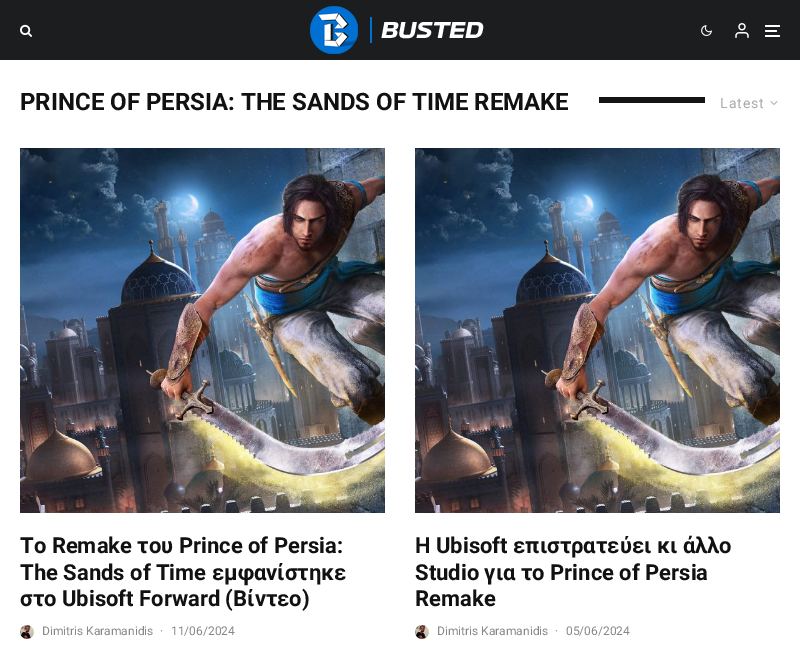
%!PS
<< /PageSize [800 663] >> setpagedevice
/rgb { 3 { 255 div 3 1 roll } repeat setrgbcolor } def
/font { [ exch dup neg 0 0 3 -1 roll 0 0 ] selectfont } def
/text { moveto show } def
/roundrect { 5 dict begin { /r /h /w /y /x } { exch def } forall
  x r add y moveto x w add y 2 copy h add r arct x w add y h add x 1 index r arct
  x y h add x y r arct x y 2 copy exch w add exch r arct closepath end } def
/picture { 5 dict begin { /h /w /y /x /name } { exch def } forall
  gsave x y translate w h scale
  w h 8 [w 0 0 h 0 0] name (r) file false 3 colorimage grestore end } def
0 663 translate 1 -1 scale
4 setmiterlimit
255 255 255 rgb
0 0 800 663 rectfill
28 29 30 rgb
0 0 800 60 rectfill
(img_01.rgb) 20 24 12 13 picture
(img_02.rgb) 310 6 174 48 picture
(img_03.rgb) 701 25 11 11 picture
(img_04.rgb) 735 23 14 15 picture
255 255 255 rgb
765 30 12 2 1 roundrect fill
765 25 15 2 1 roundrect fill
765 35 15 2 1 roundrect fill
20 20 20 rgb
599 97 106 6 rectfill
(img_05.rgb) 770 101 8 4 picture
(img_06.rgb) 20 148 365 365 picture
(img_07.rgb) 20 625 14 14 picture
(img_08.rgb) 415 148 365 365 picture
(img_09.rgb) 415 625 14 14 picture
/Roboto-Bold 24 font
17 17 17 rgb
(PRINCE OF PERSIA: THE SANDS OF TIME REMAKE) 20 110 text
/Roboto-Regular 14 font
170 170 170 rgb
720 108 moveto 1 0 (Latest) ashow
/Roboto-Bold 22 font
17 17 17 rgb
(Το Remake του Prince of Persia:) 20 553 text
(The Sands of Time εμφανίστηκε) 20 580 text
(στο Ubisoft Forward \(Βίντεο\)) 20 606 text
/Roboto-Regular 12 font
136 136 136 rgb
(Dimitris Karamanidis) 42 635 text
(·) 160 635 text
(11/06/2024) 171 635 text
/Roboto-Bold 22 font
17 17 17 rgb
(Η Ubisoft επιστρατεύει κι άλλο) 415 553 text
(Studio για το Prince of Persia) 415 580 text
(Remake) 415 606 text
/Roboto-Regular 12 font
136 136 136 rgb
(Dimitris Karamanidis) 437 635 text
(·) 555 635 text
(05/06/2024) 566 635 text
showpage
